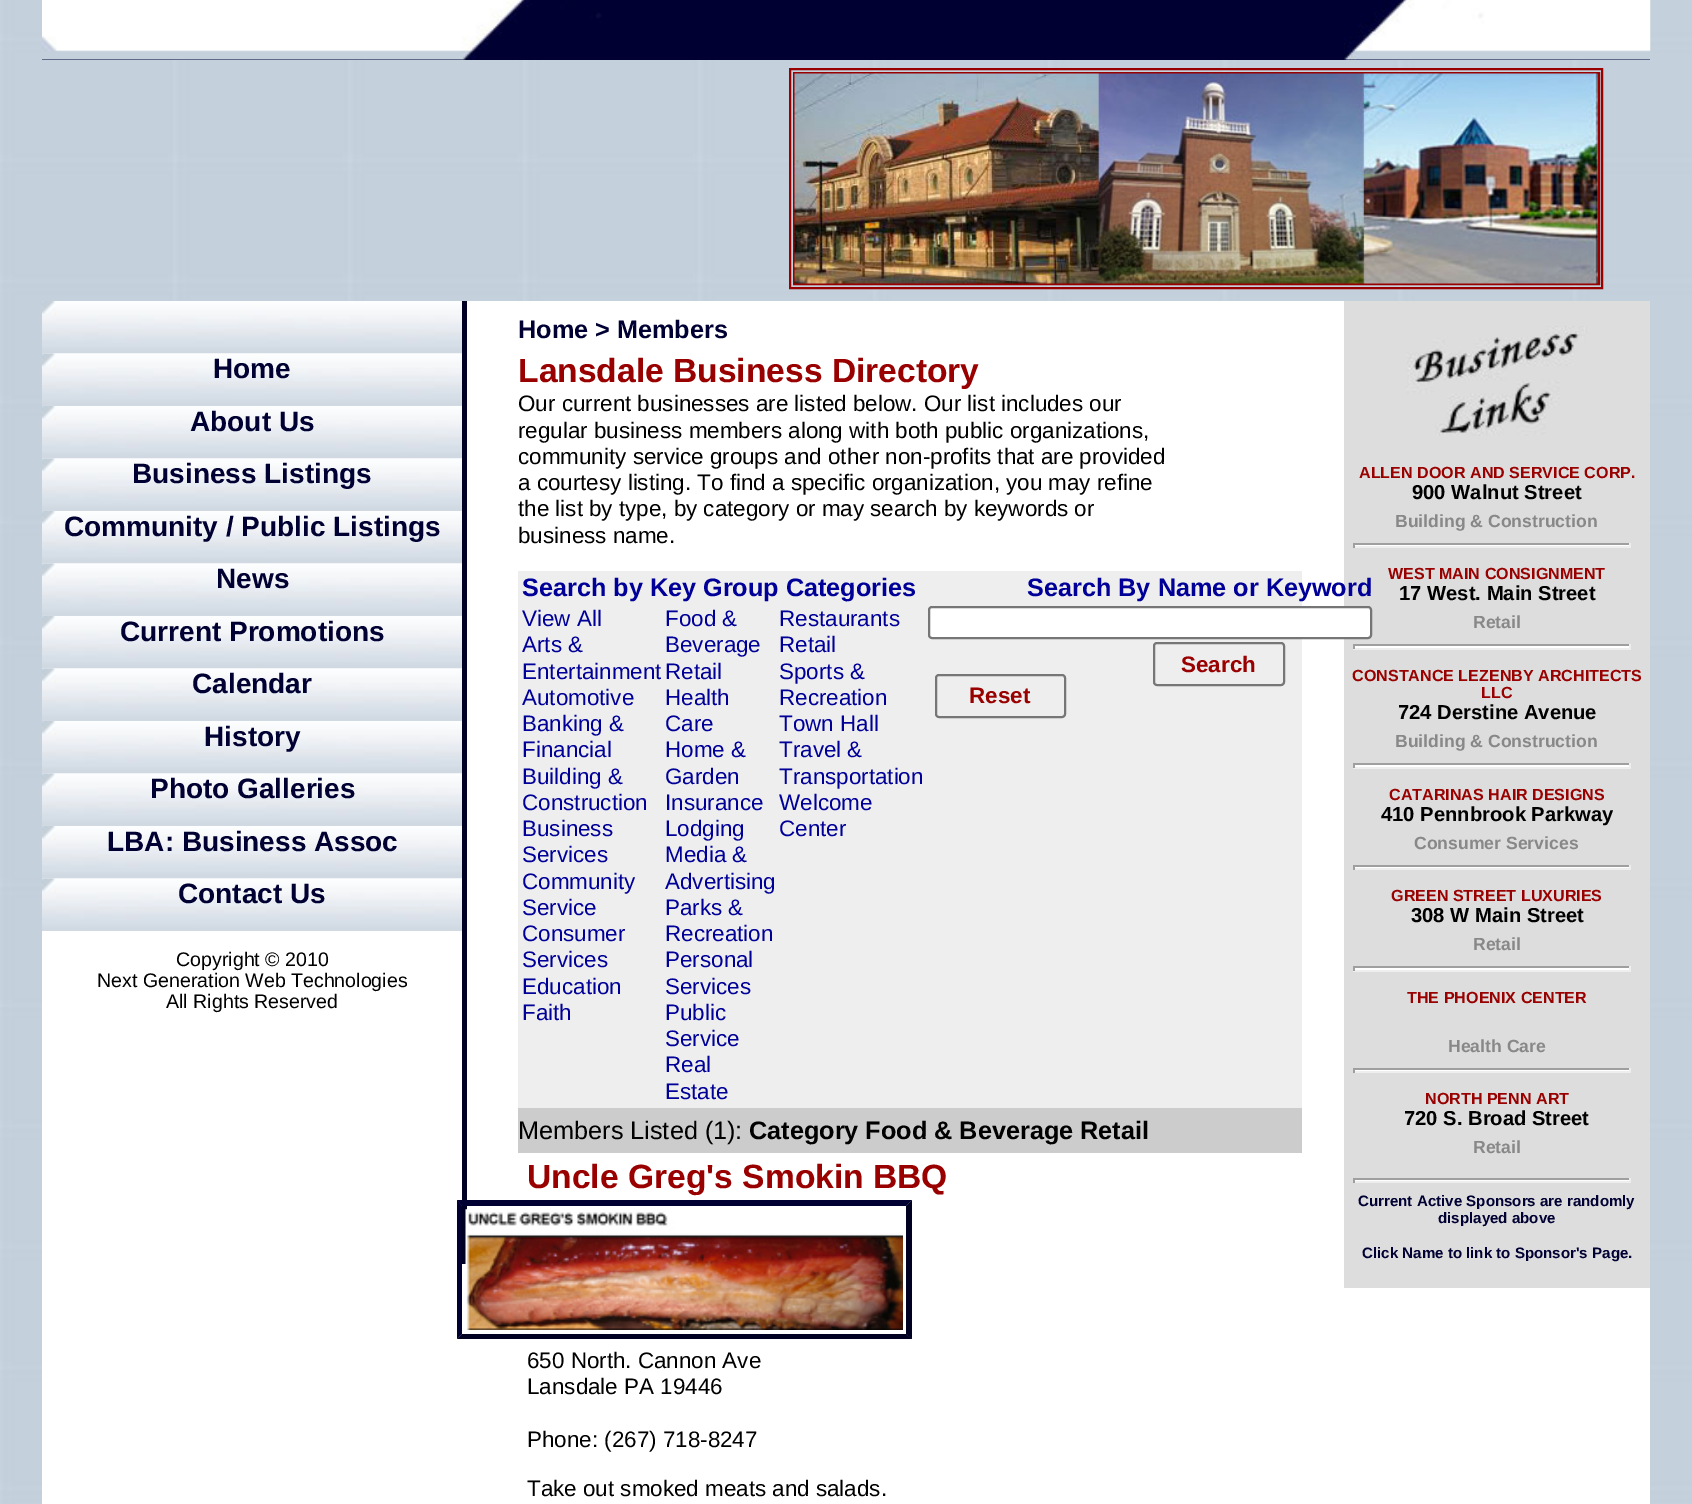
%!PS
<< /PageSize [1692 1504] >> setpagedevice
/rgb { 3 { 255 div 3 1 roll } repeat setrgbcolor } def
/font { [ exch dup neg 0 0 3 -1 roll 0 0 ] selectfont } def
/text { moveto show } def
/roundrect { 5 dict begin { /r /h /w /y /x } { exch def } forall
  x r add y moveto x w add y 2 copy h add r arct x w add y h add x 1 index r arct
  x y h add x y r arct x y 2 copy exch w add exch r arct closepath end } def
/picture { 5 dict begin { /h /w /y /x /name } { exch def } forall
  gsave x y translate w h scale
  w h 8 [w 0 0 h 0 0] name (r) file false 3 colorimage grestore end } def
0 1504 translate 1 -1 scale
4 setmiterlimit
255 255 255 rgb
0 0 1692 1504 rectfill
(img_01.rgb) 0 0 1692 1504 picture
0 0 51 rgb
42 0 1608 60 rectfill
(img_02.rgb) 42 0 560 60 picture
(img_03.rgb) 1344 0 307 60 picture
153 0 0 rgb
2 setlinewidth
790 69 812 219 rectstroke
794 73 805 211 rectstroke
(img_04.rgb) 794 73 804 211 picture
255 255 255 rgb
42 301 1608 1203 rectfill
0 0 34 rgb
462 301 5 963 rectfill
(img_05.rgb) 42 301 420 53 picture
(img_06.rgb) 42 353 420 53 picture
(img_05.rgb) 42 406 420 53 picture
(img_06.rgb) 42 458 420 53 picture
(img_05.rgb) 42 511 420 53 picture
(img_06.rgb) 42 563 420 53 picture
(img_05.rgb) 42 616 420 53 picture
(img_06.rgb) 42 668 420 53 picture
(img_05.rgb) 42 721 420 53 picture
(img_06.rgb) 42 773 420 53 picture
(img_05.rgb) 42 826 420 53 picture
(img_06.rgb) 42 878 420 53 picture
238 238 238 rgb
518 571 784 537 rectfill
221 221 221 rgb
1344 301 306 987 rectfill
255 255 255 rgb
929 607 442 31 3 roundrect gsave fill grestore
118 118 118 rgb
stroke
1154 643 130 42 3 roundrect stroke
936 675 129 42 3 roundrect stroke
204 204 204 rgb
518 1108 784 45 rectfill
0 0 51 rgb
457 1200 moveto 455 0 rlineto -6 6 rlineto -444 0 rlineto closepath fill
0 0 34 rgb
912 1200 moveto 0 139 rlineto -6 -5 rlineto 0 -128 rlineto closepath fill
912 1339 moveto -455 0 rlineto 5 -5 rlineto 444 0 rlineto closepath fill
0 0 51 rgb
457 1339 moveto 0 -139 rlineto 5 6 rlineto 0 128 rlineto closepath fill
(img_07.rgb) 465 1209 438 121 picture
(img_08.rgb) 1406 326 181 110 picture
255 255 255 rgb
1353 545 278 1 rectfill
159 159 159 rgb
1353 543 278 2 rectfill
238 238 238 rgb
1629 543 2 5 rectfill
1353 546 278 2 rectfill
159 159 159 rgb
1353 543 2 5 rectfill
255 255 255 rgb
1353 646 278 2 rectfill
159 159 159 rgb
1353 644 278 2 rectfill
238 238 238 rgb
1629 644 2 5 rectfill
1353 648 278 2 rectfill
159 159 159 rgb
1353 644 2 5 rectfill
255 255 255 rgb
1353 765 278 2 rectfill
159 159 159 rgb
1353 763 278 2 rectfill
238 238 238 rgb
1629 763 2 5 rectfill
1353 767 278 2 rectfill
159 159 159 rgb
1353 763 2 5 rectfill
255 255 255 rgb
1353 867 278 1 rectfill
159 159 159 rgb
1353 865 278 2 rectfill
238 238 238 rgb
1629 865 2 5 rectfill
1353 868 278 2 rectfill
159 159 159 rgb
1353 865 2 5 rectfill
255 255 255 rgb
1353 968 278 2 rectfill
159 159 159 rgb
1353 966 278 2 rectfill
238 238 238 rgb
1629 966 2 5 rectfill
1353 970 278 2 rectfill
159 159 159 rgb
1353 966 2 5 rectfill
255 255 255 rgb
1353 1070 278 1 rectfill
159 159 159 rgb
1353 1068 278 2 rectfill
238 238 238 rgb
1629 1068 2 5 rectfill
1353 1071 278 2 rectfill
159 159 159 rgb
1353 1068 2 5 rectfill
255 255 255 rgb
1353 1180 278 1 rectfill
159 159 159 rgb
1353 1178 278 2 rectfill
238 238 238 rgb
1629 1178 2 5 rectfill
1353 1181 278 2 rectfill
159 159 159 rgb
1353 1178 2 5 rectfill
/LiberationSans-Bold 28 font
0 0 51 rgb
(Home) 213 378 text
(About Us) 190 431 text
(Business Listings) 132 483 text
(Community / Public Listings) 64 536 text
(News) 216 588 text
(Current Promotions) 120 641 text
(Calendar) 192 693 text
(History) 204 746 text
(Photo Galleries) 150 798 text
(LBA: Business Assoc) 107 851 text
(Contact Us) 178 903 text
/LiberationSans-Regular 19.6 font
0 0 0 rgb
(Copyright © 2010) 176 966 text
(Next Generation Web Technologies) 97 987 text
(All Rights Reserved) 166 1008 text
/LiberationSans-Bold 25.25 font
0 0 51 rgb
(Home > Members) 518 338 text
/LiberationSans-Bold 33.6 font
153 0 0 rgb
(Lansdale Business Directory) 518 382 text
/LiberationSans-Regular 22.4 font
0 0 0 rgb
(Our current businesses are listed below. Our list includes our) 518 411 text
(regular business members along with both public organizations,) 518 438 text
(community service groups and other non-profits that are provided) 518 464 text
(a courtesy listing. To find a specific organization, you may refine) 518 490 text
(the list by type, by category or may search by keywords or) 518 516 text
(business name.) 518 543 text
/LiberationSans-Bold 25.25 font
0 0 153 rgb
(Search by Key Group Categories) 522 596 text
(Search By Name or Keyword) 1027 596 text
/LiberationSans-Regular 22.4 font
(View All) 522 626 text
(Arts &) 522 652 text
(Entertainment) 522 679 text
(Automotive) 522 705 text
(Banking &) 522 731 text
(Financial) 522 757 text
(Building &) 522 784 text
(Construction) 522 810 text
(Business) 522 836 text
(Services) 522 862 text
(Community) 522 889 text
(Service) 522 915 text
(Consumer) 522 941 text
(Services) 522 967 text
(Education) 522 994 text
(Faith) 522 1020 text
(Food &) 665 626 text
(Beverage) 665 652 text
(Retail) 665 679 text
(Health) 665 705 text
(Care) 665 731 text
(Home &) 665 757 text
(Garden) 665 784 text
(Insurance) 665 810 text
(Lodging) 665 836 text
(Media &) 665 862 text
(Advertising) 665 889 text
(Parks &) 665 915 text
(Recreation) 665 941 text
(Personal) 665 967 text
(Services) 665 994 text
(Public) 665 1020 text
(Service) 665 1046 text
(Real) 665 1072 text
(Estate) 665 1099 text
(Restaurants) 779 626 text
(Retail) 779 652 text
(Sports &) 779 679 text
(Recreation) 779 705 text
(Town Hall) 779 731 text
(Travel &) 779 757 text
(Transportation) 779 784 text
(Welcome) 779 810 text
(Center) 779 836 text
/LiberationSans-Bold 22.4 font
153 0 0 rgb
(Search) 1181 672 text
(Reset) 969 703 text
/LiberationSans-Regular 25.25 font
0 0 0 rgb
(Members Listed \(1\):) 518 1139 text
/LiberationSans-Bold 25.25 font
(Category Food & Beverage Retail) 749 1139 text
/LiberationSans-Bold 33.6 font
153 0 0 rgb
(Uncle Greg's Smokin BBQ) 527 1188 text
/LiberationSans-Regular 22.4 font
0 0 0 rgb
(650 North. Cannon Ave) 527 1368 text
(Lansdale PA 19446) 527 1394 text
(Phone: \(267\) 718-8247) 527 1447 text
(Take out smoked meats and salads.) 527 1496 text
/LiberationSans-Bold 16.1 font
153 0 0 rgb
(ALLEN DOOR AND SERVICE CORP.) 1359 478 text
/LiberationSans-Bold 20.2 font
0 0 0 rgb
(900 Walnut Street) 1412 499 text
/LiberationSans-Bold 17.6 font
136 136 136 rgb
(Building & Construction) 1395 527 text
/LiberationSans-Bold 16.1 font
153 0 0 rgb
(WEST MAIN CONSIGNMENT) 1388 579 text
/LiberationSans-Bold 20.2 font
0 0 0 rgb
(17 West. Main Street) 1399 600 text
/LiberationSans-Bold 17.6 font
136 136 136 rgb
(Retail) 1473 628 text
/LiberationSans-Bold 16.1 font
153 0 0 rgb
(CONSTANCE LEZENBY ARCHITECTS) 1352 681 text
(LLC) 1481 698 text
/LiberationSans-Bold 20.2 font
0 0 0 rgb
(724 Derstine Avenue) 1398 719 text
/LiberationSans-Bold 17.6 font
136 136 136 rgb
(Building & Construction) 1395 747 text
/LiberationSans-Bold 16.1 font
153 0 0 rgb
(CATARINAS HAIR DESIGNS) 1389 800 text
/LiberationSans-Bold 20.2 font
0 0 0 rgb
(410 Pennbrook Parkway) 1381 821 text
/LiberationSans-Bold 17.6 font
136 136 136 rgb
(Consumer Services) 1414 849 text
/LiberationSans-Bold 16.1 font
153 0 0 rgb
(GREEN STREET LUXURIES) 1391 901 text
/LiberationSans-Bold 20.2 font
0 0 0 rgb
(308 W Main Street) 1411 922 text
/LiberationSans-Bold 17.6 font
136 136 136 rgb
(Retail) 1473 950 text
/LiberationSans-Bold 16.1 font
153 0 0 rgb
(THE PHOENIX CENTER) 1407 1003 text
/LiberationSans-Bold 17.6 font
136 136 136 rgb
(Health Care) 1448 1052 text
/LiberationSans-Bold 16.1 font
153 0 0 rgb
(NORTH PENN ART) 1425 1104 text
/LiberationSans-Bold 20.2 font
0 0 0 rgb
(720 S. Broad Street) 1404 1125 text
/LiberationSans-Bold 17.6 font
136 136 136 rgb
(Retail) 1473 1153 text
/LiberationSans-Bold 15.1 font
0 0 51 rgb
(Current Active Sponsors are randomly) 1358 1206 text
(displayed above) 1438 1223 text
(Click Name to link to Sponsor's Page.) 1362 1258 text
showpage
